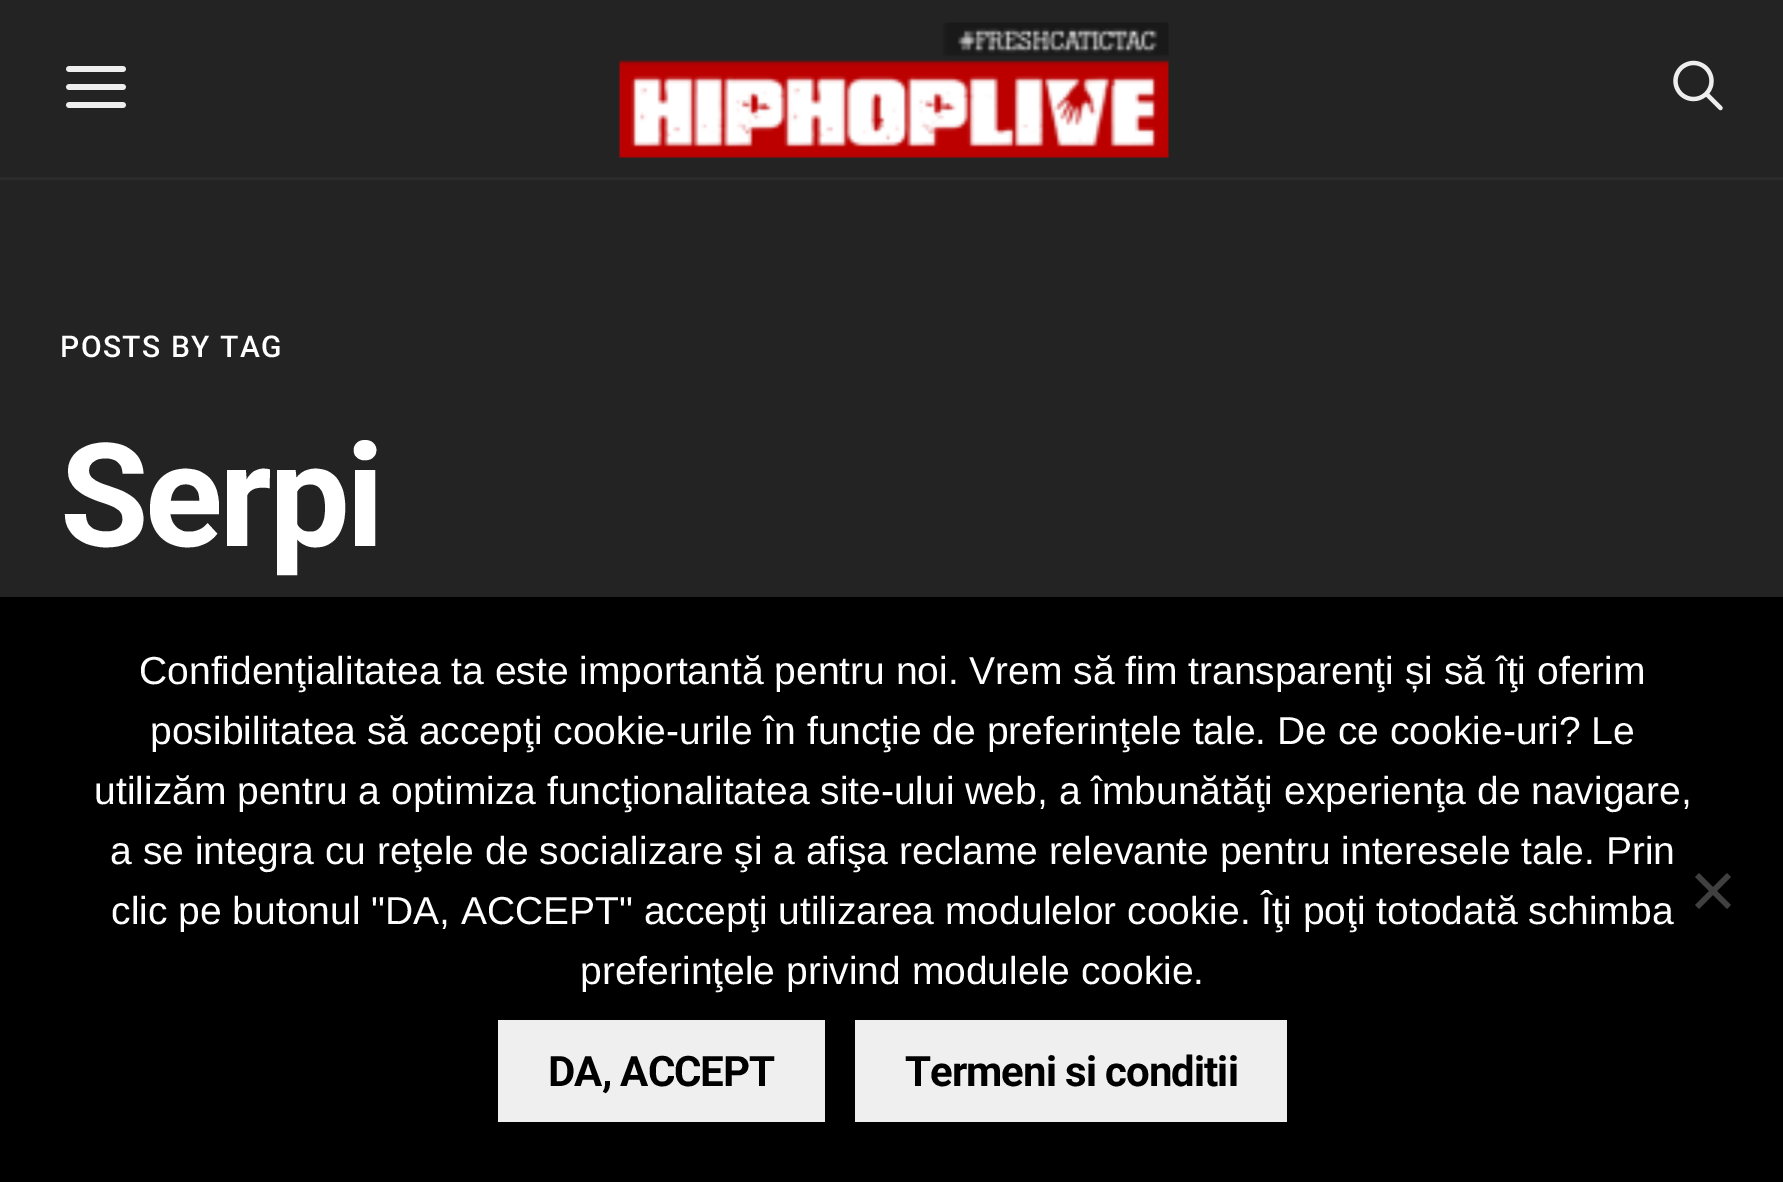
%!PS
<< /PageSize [1783 1182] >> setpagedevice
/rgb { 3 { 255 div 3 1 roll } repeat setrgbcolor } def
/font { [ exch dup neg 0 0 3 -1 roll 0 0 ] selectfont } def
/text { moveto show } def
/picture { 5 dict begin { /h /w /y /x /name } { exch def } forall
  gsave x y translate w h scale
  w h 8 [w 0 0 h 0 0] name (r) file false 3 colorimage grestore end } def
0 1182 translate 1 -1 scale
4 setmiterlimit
35 35 35 rgb
0 0 1783 1182 rectfill
43 43 43 rgb
0 177 1783 3 rectfill
(img_01.rgb) 66 66 60 42 picture
(img_02.rgb) 619 22 550 136 picture
(img_03.rgb) 1673 60 50 51 picture
0 0 0 rgb
0 597 1783 585 rectfill
64 64 64 rgb
1727 873 moveto 4 4 rlineto -32 32 rlineto -4 -4 rlineto closepath fill
1695 877 moveto 4 -4 rlineto 32 32 rlineto -4 4 rlineto closepath fill
239 239 239 rgb
498 1020 327 102 rectfill
855 1020 432 102 rectfill
/Roboto-Medium 30 font
255 255 255 rgb
60 357 moveto 1.5 0 (POSTS BY TAG) ashow
/Roboto-Bold 144 font
60 546 moveto -3.5 0 (Serpi) ashow
/LiberationSans-Regular 39 font
(Confidenţialitatea ta este importantă pentru noi. Vrem să fim transparenţi și să îţi oferim) 139 684 text
(posibilitatea să accepţi cookie-urile în funcţie de preferinţele tale. De ce cookie-uri? Le) 150 744 text
(utilizăm pentru a optimiza funcţionalitatea site-ului web, a îmbunătăţi experienţa de navigare,) 94 804 text
(a se integra cu reţele de socializare şi a afişa reclame relevante pentru interesele tale. Prin) 110 864 text
(clic pe butonul "DA, ACCEPT" accepţi utilizarea modulelor cookie. Îţi poţi totodată schimba) 111 924 text
(preferinţele privind modulele cookie.) 580 984 text
/Roboto-Bold 42 font
0 0 0 rgb
548 1086 moveto -1 0 (DA, ACCEPT) ashow
905 1086 moveto -1 0 (Termeni si conditii) ashow
showpage
